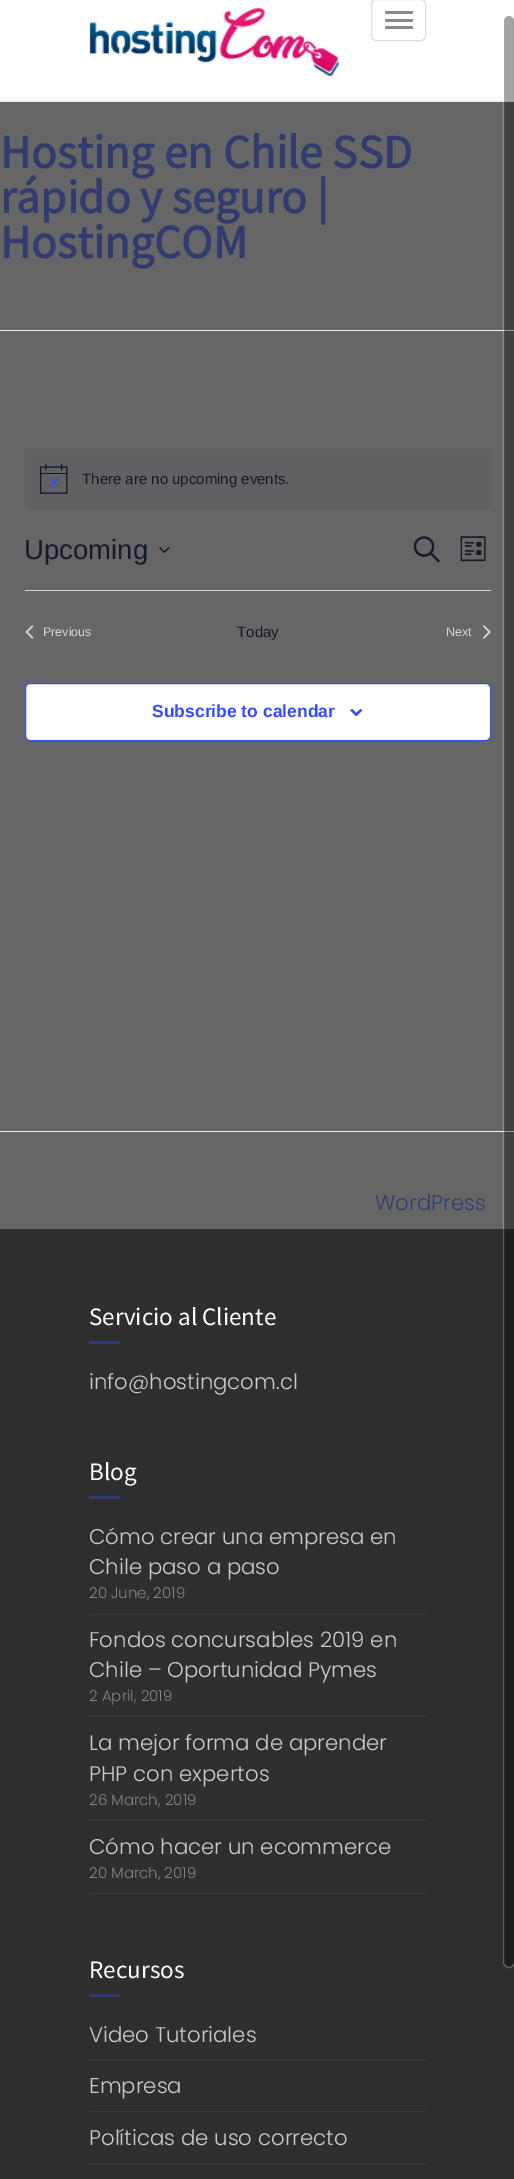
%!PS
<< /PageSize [514 2179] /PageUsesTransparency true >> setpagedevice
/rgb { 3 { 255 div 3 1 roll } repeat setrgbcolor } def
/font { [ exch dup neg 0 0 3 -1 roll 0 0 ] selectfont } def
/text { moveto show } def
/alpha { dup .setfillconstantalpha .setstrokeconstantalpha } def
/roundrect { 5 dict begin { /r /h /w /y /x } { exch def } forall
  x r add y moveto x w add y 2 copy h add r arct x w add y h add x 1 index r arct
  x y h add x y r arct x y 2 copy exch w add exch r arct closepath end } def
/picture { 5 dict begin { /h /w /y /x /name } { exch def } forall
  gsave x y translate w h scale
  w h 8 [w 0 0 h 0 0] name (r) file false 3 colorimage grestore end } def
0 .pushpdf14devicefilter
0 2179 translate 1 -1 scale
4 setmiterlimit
102 102 102 rgb
0 0 514 2179 rectfill
255 255 255 rgb
0 0 514 101 rectfill
231 231 231 rgb
0 101 514 1 rectfill
(img_01.rgb) 89 8 250 68 picture
221 221 221 rgb
371.5 -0.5 54 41 4.5 roundrect stroke
136 136 136 rgb
385 11 28 3 1.5 roundrect fill
385 19 28 3 1.5 roundrect fill
385 26 28 3 1.5 roundrect fill
238 238 238 rgb
0 330 514 1 rectfill
96 97 98 rgb
25 449 466 60 5 roundrect fill
(img_02.rgb) 40 464 28 30 picture
(img_03.rgb) 159 547 11 7 picture
(img_04.rgb) 414 536 26 27 picture
(img_05.rgb) 460 536 26 26 picture
213 213 213 rgb
25 590 466 1 rectfill
(img_06.rgb) 25 625 9 14 picture
(img_07.rgb) 483 625 8 14 picture
255 255 255 rgb
25.5 683.5 465 57 4.5 roundrect gsave fill grestore
51 74 255 rgb
stroke
(img_08.rgb) 350 709 13 7 picture
238 238 238 rgb
0 1131 514 1 rectfill
46 46 46 rgb
0 1229 514 950 rectfill
0.36 alpha
0 0 0 rgb
504 16 10 1950 5 roundrect fill
0.24 alpha
255 255 255 rgb
503.5 15.5 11 1952 5.5 roundrect stroke
1 alpha
49 59 109 rgb
89 1341 31 3 rectfill
89 1496 31 3 rectfill
56 56 56 rgb
89 1614 337 1 rectfill
89 1716 337 1 rectfill
89 1820 337 1 rectfill
89 1893 337 1 rectfill
49 59 109 rgb
89 1994 31 3 rectfill
56 56 56 rgb
89 2059 337 1 rectfill
89 2111 337 1 rectfill
89 2163 337 1 rectfill
/NotoSansJP-Bold 42.5 font
49 59 109 rgb
(Hosting en Chile SSD) 0 168 text
(rápido y seguro |) 0 213 text
(HostingCOM) 0 258 text
/LiberationSans-Regular 15 font
20 24 39 rgb
(There are no upcoming events.) 82 484 text
/LiberationSans-Regular 27.5 font
(Upcoming) 24 559 text
/LiberationSans-Regular 12.5 font
213 213 213 rgb
(Previous) 43 636 text
/LiberationSans-Regular 15 font
20 24 39 rgb
(Today) 237 637 text
/LiberationSans-Regular 12.5 font
213 213 213 rgb
(Next) 446 636 text
/LiberationSans-Bold 17.5 font
51 74 255 rgb
(Subscribe to calendar) 152 717 text
/Poppins-Light 21.25 font
49 59 109 rgb
(WordPress) 375 1210 text
/NotoSansJP-Thin 22.5 font
255 255 255 rgb
(Servicio al Cliente) 89 1325 text
/Poppins-Light 21.25 font
203 203 203 rgb
(info@hostingcom.cl) 89 1389 text
/NotoSansJP-Thin 22.5 font
255 255 255 rgb
(Blog) 89 1480 text
/Poppins-Light 21.25 font
203 203 203 rgb
(Cómo crear una empresa en) 89 1544 text
(Chile paso a paso) 89 1574 text
/Poppins-Light 15 font
132 132 132 rgb
(20 June, 2019) 89 1598 text
/Poppins-Light 21.25 font
203 203 203 rgb
(Fondos concursables 2019 en) 89 1647 text
(Chile – Oportunidad Pymes) 89 1677 text
/Poppins-Light 15 font
132 132 132 rgb
(2 April, 2019) 89 1701 text
/Poppins-Light 21.25 font
203 203 203 rgb
(La mejor forma de aprender) 89 1750 text
(PHP con expertos) 89 1781 text
/Poppins-Light 15 font
132 132 132 rgb
(26 March, 2019) 89 1805 text
/Poppins-Light 21.25 font
203 203 203 rgb
(Cómo hacer un ecommerce) 89 1854 text
/Poppins-Light 15 font
132 132 132 rgb
(20 March, 2019) 89 1878 text
/NotoSansJP-Thin 22.5 font
255 255 255 rgb
(Recursos) 89 1978 text
/Poppins-Light 21.25 font
203 203 203 rgb
(Video Tutoriales) 89 2042 text
(Empresa) 89 2093 text
(Políticas de uso correcto) 89 2145 text
.poppdf14devicefilter showpage
